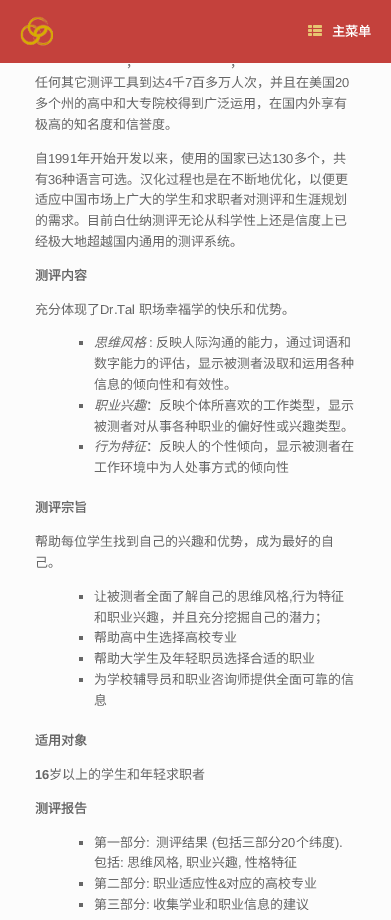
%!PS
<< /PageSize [391 920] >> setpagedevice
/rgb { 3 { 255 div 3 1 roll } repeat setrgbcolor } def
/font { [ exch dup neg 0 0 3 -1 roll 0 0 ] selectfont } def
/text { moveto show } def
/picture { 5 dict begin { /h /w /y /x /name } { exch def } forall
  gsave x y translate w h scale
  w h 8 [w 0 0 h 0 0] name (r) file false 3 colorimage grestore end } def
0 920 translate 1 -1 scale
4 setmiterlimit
252 252 252 rgb
0 0 391 920 rectfill
196 65 60 rgb
0 0 391 63 rectfill
(img_01.rgb) 20 16 33 30 picture
(img_02.rgb) 308 25 14 11 picture
102 102 102 rgb
79 341 4 4 rectfill
79 404 4 4 rectfill
79 445 4 4 rectfill
79 595 4 4 rectfill
79 636 4 4 rectfill
79 657 4 4 rectfill
79 678 4 4 rectfill
79 841 4 4 rectfill
79 882 4 4 rectfill
79 903 4 4 rectfill
/NotoSansCJKSC-Bold 13 font
255 255 255 rgb
(主菜单) 332 36 text
/NotoSansCJKSC-Regular 13 font
102 102 102 rgb
(，) 126 67 text
(，) 230 67 text
(任何其它测评工具到达) 35 87 text
/LiberationSans-Regular 13 font
(4) 165 87 text
/NotoSansCJKSC-Regular 13 font
(千) 172 87 text
/LiberationSans-Regular 13 font
(7) 185 87 text
/NotoSansCJKSC-Regular 13 font
(百多万人次，并且在美国) 192 87 text
/LiberationSans-Regular 13 font
(20) 335 87 text
/NotoSansCJKSC-Regular 13 font
(多个州的高中和大专院校得到广泛运用，在国内外享有) 35 108 text
(极高的知名度和信誉度。) 35 129 text
(自) 35 163 text
/LiberationSans-Regular 13 font
(1991) 48 163 text
/NotoSansCJKSC-Regular 13 font
(年开始开发以来，使用的国家已达) 77 163 text
/LiberationSans-Regular 13 font
(130) 272 163 text
/NotoSansCJKSC-Regular 13 font
(多个，共) 294 163 text
(有) 35 184 text
/LiberationSans-Regular 13 font
(36) 48 184 text
/NotoSansCJKSC-Regular 13 font
(种语言可选。汉化过程也是在不断地优化，以便更) 62 184 text
(适应中国市场上广大的学生和求职者对测评和生涯规划) 35 204 text
(的需求。目前白仕纳测评无论从科学性上还是信度上已) 35 225 text
(经极大地超越国内通用的测评系统。) 35 246 text
/NotoSansCJKSC-Bold 13 font
(测评内容) 35 280 text
/NotoSansCJKSC-Regular 13 font
(充分体现了) 35 314 text
/LiberationSans-Regular 13 font
(Dr.Tal) 100 314 text
/NotoSansCJKSC-Regular 13 font
(职场幸福学的快乐和优势。) 139 314 text
/NotoSansCJKSC-Italic 13 font
(思维风格) 94 347 text
/LiberationSans-Regular 13 font
(:) 149 347 text
/NotoSansCJKSC-Regular 13 font
(反映人际沟通的能力，通过词语和) 156 347 text
(数字能力的评估，显示被测者汲取和运用各种) 94 368 text
(信息的倾向性和有效性。) 94 389 text
/NotoSansCJKSC-Italic 13 font
(职业兴趣) 94 410 text
/NotoSansCJKSC-Regular 13 font
(：反映个体所喜欢的工作类型，显示) 146 410 text
(被测者对从事各种职业的偏好性或兴趣类型。) 94 431 text
/NotoSansCJKSC-Italic 13 font
(行为特征) 94 451 text
/NotoSansCJKSC-Regular 13 font
(：反映人的个性倾向，显示被测者在) 146 451 text
(工作环境中为人处事方式的倾向性) 94 472 text
/NotoSansCJKSC-Bold 13 font
(测评宗旨) 35 512 text
/NotoSansCJKSC-Regular 13 font
(帮助每位学生找到自己的兴趣和优势，成为最好的自) 35 546 text
(己。) 35 567 text
(让被测者全面了解自己的思维风格) 94 601 text
(行为特征) 292 601 text
/LiberationSans-Regular 13 font
(,) 289 601 text
/NotoSansCJKSC-Regular 13 font
(和职业兴趣，并且充分挖掘自己的潜力；) 94 622 text
(帮助高中生选择高校专业) 94 642 text
(帮助大学生及年轻职员选择合适的职业) 94 663 text
(为学校辅导员和职业咨询师提供全面可靠的信) 94 684 text
(息) 94 705 text
/NotoSansCJKSC-Bold 13 font
(适用对象) 35 745 text
/LiberationSans-Bold 13 font
(16) 35 779 text
/NotoSansCJKSC-Regular 13 font
(岁以上的学生和年轻求职者) 49 779 text
/NotoSansCJKSC-Bold 13 font
(测评报告) 35 813 text
/NotoSansCJKSC-Regular 13 font
(第一部分) 94 847 text
/LiberationSans-Regular 13 font
(:) 146 847 text
/NotoSansCJKSC-Regular 13 font
(测评结果) 156 847 text
/LiberationSans-Regular 13 font
(\() 212 847 text
/NotoSansCJKSC-Regular 13 font
(包括三部分) 216 847 text
/LiberationSans-Regular 13 font
(20) 281 847 text
/NotoSansCJKSC-Regular 13 font
(个纬度) 296 847 text
/LiberationSans-Regular 13 font
(\).) 335 847 text
/NotoSansCJKSC-Regular 13 font
(包括) 94 867 text
/LiberationSans-Regular 13 font
(:) 120 867 text
/NotoSansCJKSC-Regular 13 font
(思维风格) 127 867 text
/LiberationSans-Regular 13 font
(,) 179 867 text
/NotoSansCJKSC-Regular 13 font
(职业兴趣) 186 867 text
/LiberationSans-Regular 13 font
(,) 238 867 text
/NotoSansCJKSC-Regular 13 font
(性格特征) 245 867 text
(第二部分) 94 888 text
/LiberationSans-Regular 13 font
(:) 146 888 text
/NotoSansCJKSC-Regular 13 font
(职业适应性) 153 888 text
/LiberationSans-Regular 13 font
(&) 218 888 text
/NotoSansCJKSC-Regular 13 font
(对应的高校专业) 226 888 text
(第三部分) 94 909 text
/LiberationSans-Regular 13 font
(:) 146 909 text
/NotoSansCJKSC-Regular 13 font
(收集学业和职业信息的建议) 153 909 text
showpage
